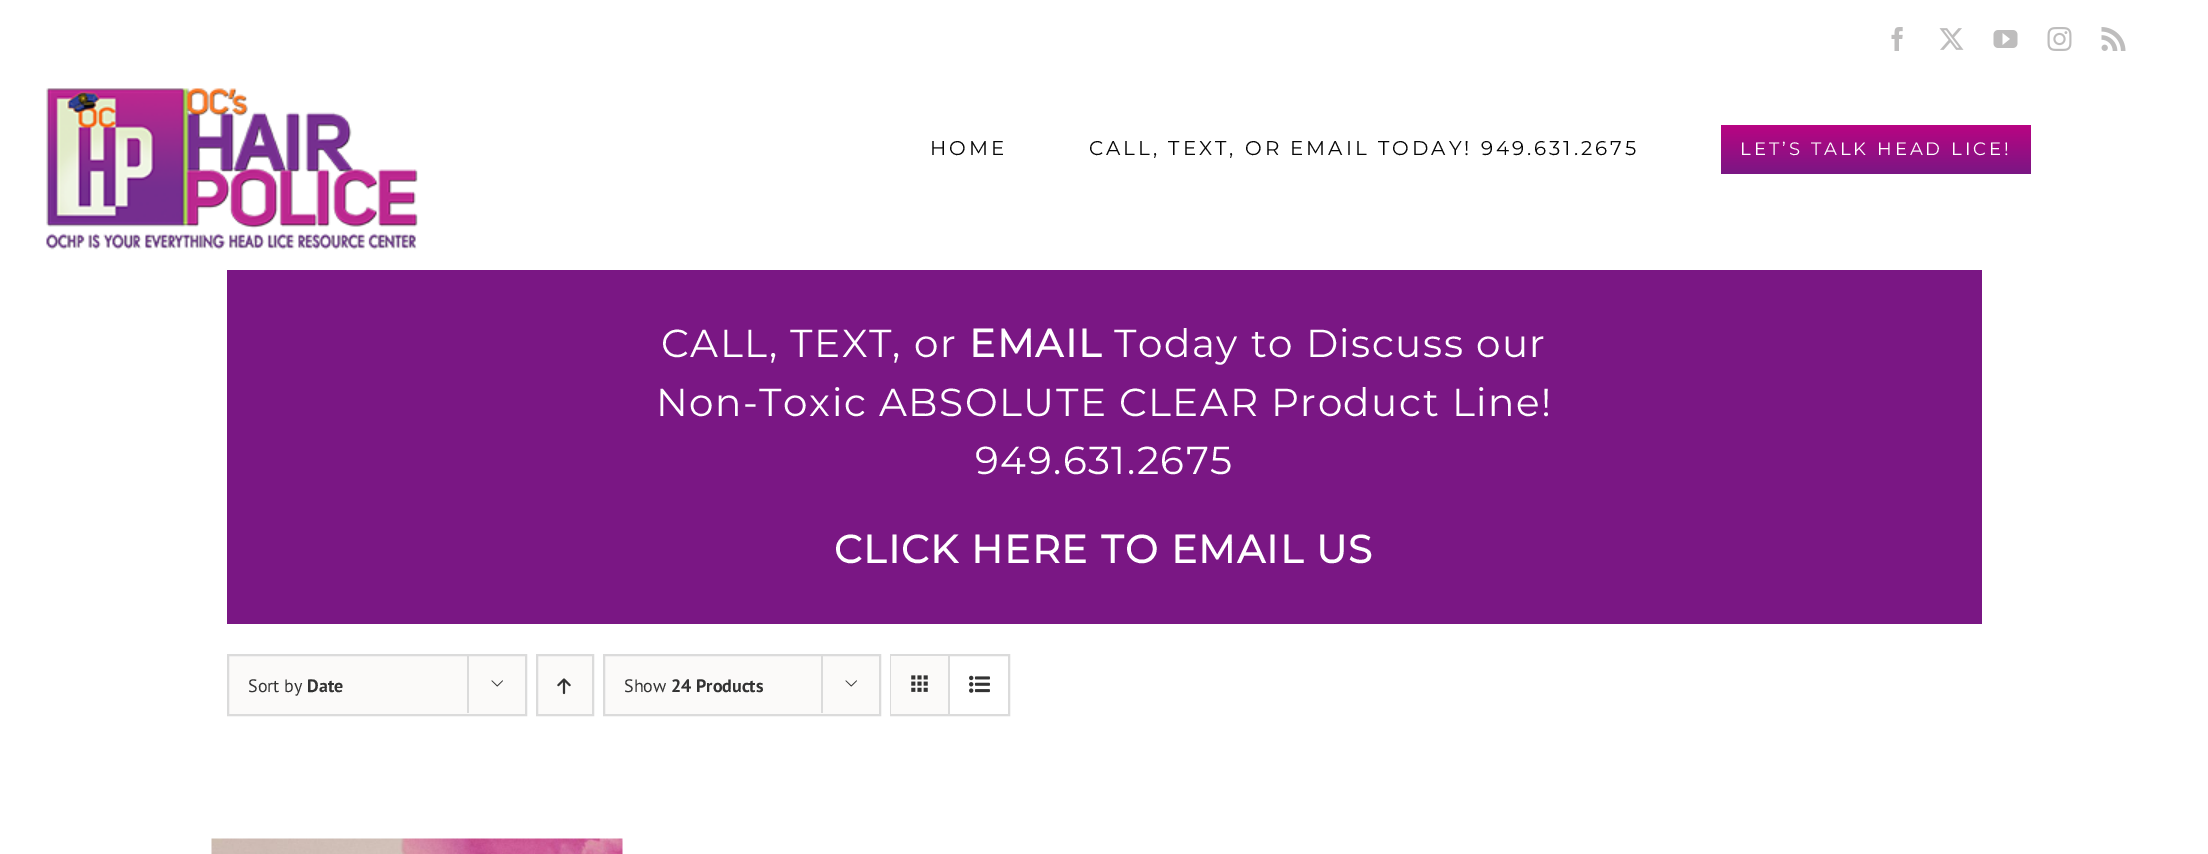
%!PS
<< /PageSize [2208 854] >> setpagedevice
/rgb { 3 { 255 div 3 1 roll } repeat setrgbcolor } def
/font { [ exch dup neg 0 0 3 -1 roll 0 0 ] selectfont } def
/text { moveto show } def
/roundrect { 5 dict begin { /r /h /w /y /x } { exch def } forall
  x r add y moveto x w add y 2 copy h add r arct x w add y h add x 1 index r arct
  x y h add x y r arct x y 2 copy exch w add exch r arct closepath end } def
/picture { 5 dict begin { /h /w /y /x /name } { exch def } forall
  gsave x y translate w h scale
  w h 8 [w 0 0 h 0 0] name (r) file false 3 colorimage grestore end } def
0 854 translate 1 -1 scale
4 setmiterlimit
255 255 255 rgb
0 0 2208 854 rectfill
(img_01.rgb) 1891 27 12 24 picture
(img_02.rgb) 1939 28 25 22 picture
(img_03.rgb) 1993 30 25 18 picture
(img_04.rgb) 2047 27 25 24 picture
(img_05.rgb) 2101 27 25 24 picture
(img_06.rgb) 46 88 372 162 picture
gsave 1721 125 310 49 3 roundrect clip newpath
<< /ShadingType 2 /ColorSpace /DeviceRGB /Coords [1876 124 1876 174] /Extend [true true] /Function << /FunctionType 2 /Domain [0 1] /C0 [0.729 0.016 0.51] /C1 [0.478 0.09 0.518] /N 1 >> >> shfill grestore
122 23 132 rgb
227 270 1755 354 rectfill
251 250 249 rgb
228 655 moveto 298 0 rlineto 0 60 rlineto -298 0 rlineto closepath gsave fill grestore
219 219 219 rgb
2 setlinewidth
stroke
467 654 2 59 rectfill
(img_07.rgb) 491 680 12 7 picture
251 250 249 rgb
537 655 moveto 56 0 rlineto 0 60 rlineto -56 0 rlineto closepath gsave fill grestore
219 219 219 rgb
stroke
(img_08.rgb) 557 678 14 17 picture
251 250 249 rgb
604 655 moveto 276 0 rlineto 0 60 rlineto -276 0 rlineto closepath gsave fill grestore
219 219 219 rgb
stroke
821 654 2 59 rectfill
(img_07.rgb) 845 680 12 7 picture
891 655 118 60 rectstroke
251 250 249 rgb
891 656 57 58 rectfill
219 219 219 rgb
948 656 2 58 rectfill
(img_09.rgb) 911 675 17 17 picture
(img_10.rgb) 969 675 21 18 picture
(img_11.rgb) 211 838 412 16 picture
/Montserrat-Thin 19.9 font
7 7 7 rgb
930 155 moveto 3 0 (HOME) ashow
1089 155 moveto 3 0 (CALL, TEXT, OR EMAIL TODAY! 949.631.2675) ashow
/Montserrat-Thin 18 font
255 255 255 rgb
1740 155 moveto 3 0 (LET’S TALK HEAD LICE!) ashow
/Montserrat-Thin 39 font
661 357 moveto 1.5 0 (CALL, TEXT, or) ashow
/Montserrat-Bold 39 font
969 357 moveto 1.5 0 (EMAIL) ashow
/Montserrat-Thin 39 font
1114 357 moveto 1.5 0 (Today to Discuss our) ashow
656 416 moveto 1.5 0 (Non-Toxic ABSOLUTE CLEAR Product Line!) ashow
975 474 moveto 1.5 0 (949.631.2675) ashow
/Montserrat-Bold 39 font
834 563 moveto 1.5 0 (CLICK HERE TO EMAIL US) ashow
/PTSans-Regular 18 font
51 51 51 rgb
(Sort by) 248 692 text
/PTSans-Bold 18 font
(Date) 307 692 text
/PTSans-Regular 18 font
(Show) 624 692 text
/PTSans-Bold 18 font
(24 Products) 671 692 text
showpage
